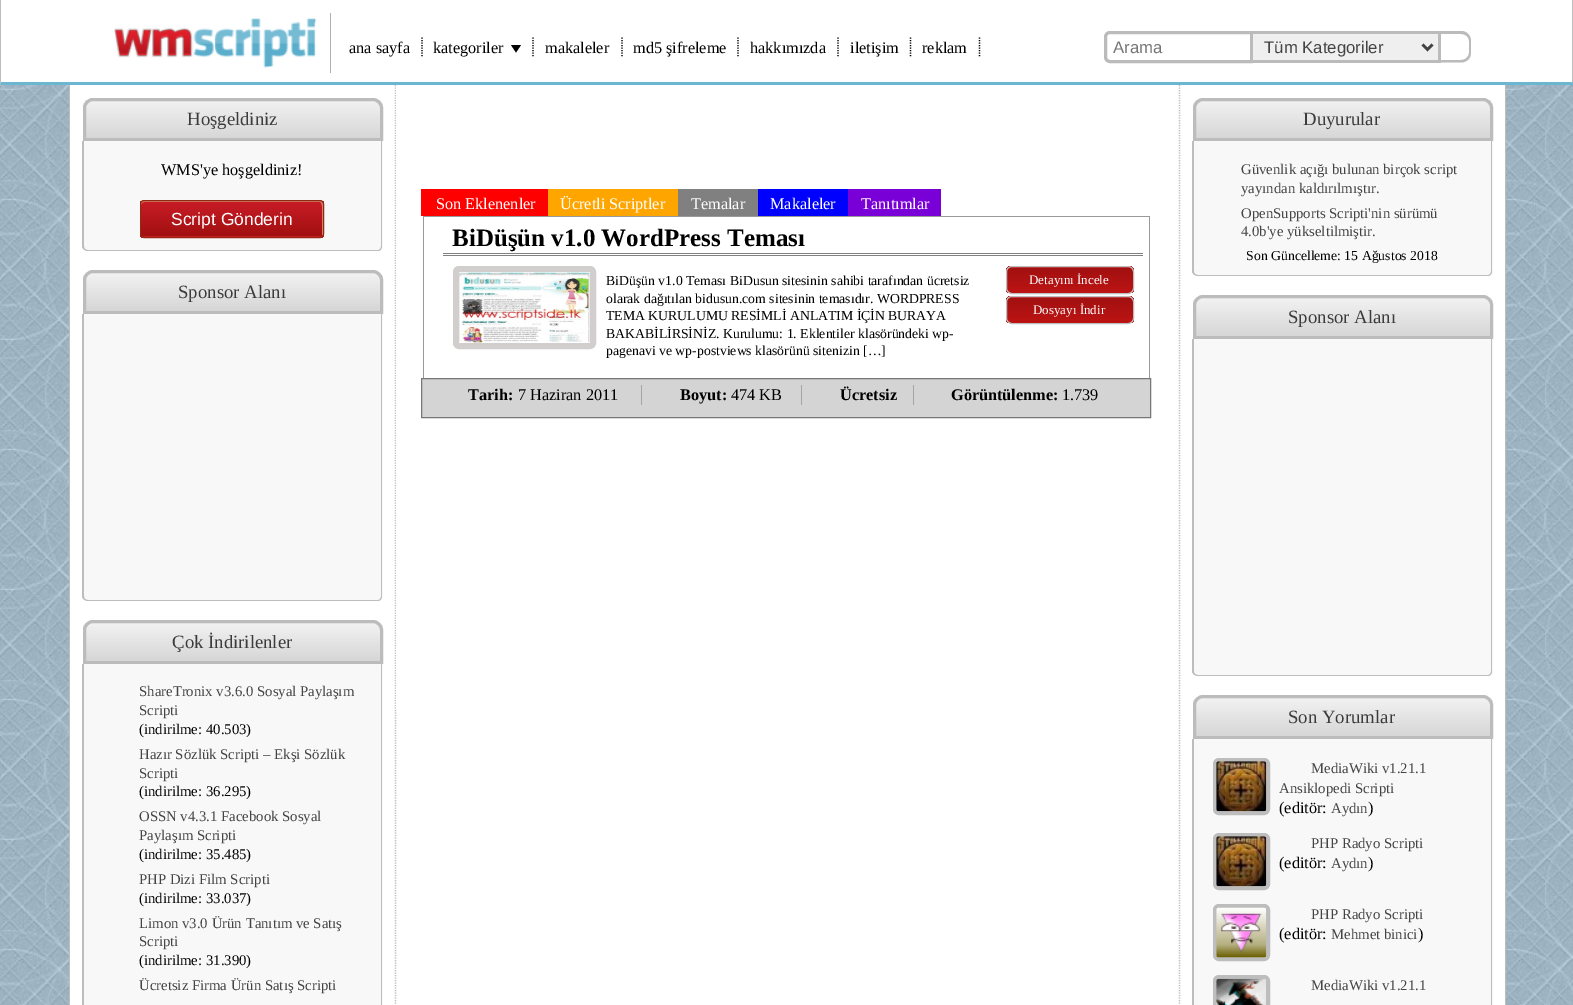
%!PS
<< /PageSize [1573 1005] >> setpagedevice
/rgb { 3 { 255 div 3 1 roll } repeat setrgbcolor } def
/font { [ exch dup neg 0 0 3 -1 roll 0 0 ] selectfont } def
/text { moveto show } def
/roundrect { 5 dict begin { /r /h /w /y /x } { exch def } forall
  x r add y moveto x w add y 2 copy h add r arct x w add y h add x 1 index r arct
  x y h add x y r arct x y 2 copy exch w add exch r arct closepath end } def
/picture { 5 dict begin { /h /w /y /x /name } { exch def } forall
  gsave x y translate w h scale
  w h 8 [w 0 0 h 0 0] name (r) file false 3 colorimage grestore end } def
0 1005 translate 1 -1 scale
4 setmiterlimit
255 255 255 rgb
0 0 1573 1005 rectfill
(img_01.rgb) 0 85 1573 920 picture
189 189 189 rgb
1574 0 moveto 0 85 rlineto -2 -3 rlineto 0 -82 rlineto closepath fill
107 182 209 rgb
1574 85 moveto -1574 0 rlineto 1 -3 rlineto 1571 0 rlineto closepath fill
189 189 189 rgb
0 85 moveto 0 -85 rlineto 1 0 rlineto 0 82 rlineto closepath fill
176 176 176 rgb
330 13 1 60 rectfill
(img_02.rgb) 114 18 203 50 picture
0 0 0 rgb
1.2 setlinewidth
[1.25 1.25] 0 setdash
422 37.5 moveto 0 20 rlineto stroke
533 37.5 moveto 0 20 rlineto stroke
511 45 moveto 10 0 rlineto -5 7.5 rlineto closepath fill
622 37.5 moveto 0 20 rlineto stroke
738 37.5 moveto 0 20 rlineto stroke
838 37.5 moveto 0 20 rlineto stroke
910.5 37.5 moveto 0 20 rlineto stroke
979.5 37.5 moveto 0 20 rlineto stroke
187 187 187 rgb
3 setlinewidth
[] 0 setdash
1110 32.5 moveto 141.5 0 rlineto 0 29 rlineto -141.5 0 rlineto -2.5 0 -4.5 -2 -4.5 -4.5 rcurveto 0 -20 rlineto 0 -2.5 2 -4.5 4.5 -4.5 rcurveto closepath stroke
239 239 239 rgb
1253 34 185 26 rectfill
187 187 187 rgb
1253 31 187 3 rectfill
1438 31 3 32 rectfill
1253 60 187 3 rectfill
68 68 68 rgb
2.5 setlinewidth
1422.5 44.5 moveto 5 5 rlineto 5 -5 rlineto stroke
187 187 187 rgb
1440 31 moveto 21 0 rlineto 6 0 10 4.5 10 10 rcurveto 0 11.5 rlineto 0 5.5 -4 10 -10 10 rcurveto -21 0 rlineto closepath 1440 34 moveto 21 0 rlineto 4.5 0 8 3 8 7 rcurveto 0 11.5 rlineto 0 4 -3.5 7.5 -8 7.5 rcurveto -21 0 rlineto closepath eofill
255 255 255 rgb
70 85 1435 920 rectfill
189 189 189 rgb
1.2 setlinewidth
[1.25 1.25] 0 setdash
395.5 85 moveto 0 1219 rlineto stroke
69 85 1 920 rectfill
gsave
93 98 moveto 280 0 rlineto 5.5 0 10 4.5 10 10 rcurveto 0 33 rlineto -300 0 rlineto 0 -33 rlineto 0 -5.5 4.5 -10 10 -10 rcurveto closepath clip newpath
gsave 83 100 moveto 300 0 rlineto 0 38 rlineto -300 0 rlineto closepath clip newpath
<< /ShadingType 2 /ColorSpace /DeviceRGB /Coords [233 100 233 139] /Extend [true true] /Function << /FunctionType 2 /Domain [0 1] /C0 [0.949 0.949 0.949] /C1 [0.839 0.839 0.839] /N 1 >> >> shfill grestore
grestore
188 188 188 rgb
3 setlinewidth
[] 0 setdash
93 99.5 moveto 280 0 rlineto 4.5 0 8.5 4 8.5 8.5 rcurveto 0 31.5 rlineto -297 0 rlineto 0 -31.5 rlineto 0 -4.5 4 -8.5 8.5 -8.5 rcurveto closepath stroke
248 248 248 rgb
83 141 moveto 300 0 rlineto 0 105 rlineto 0 3 -2 5 -5 5 rcurveto -290 0 rlineto -3 0 -5 -2 -5 -5 rcurveto closepath fill
189 189 189 rgb
82 141 moveto 300 0 rlineto 0 105 rlineto 0 3 -2 5 -4 5 rcurveto -290 0 rlineto -3 0 -6 -2 -6 -5 rcurveto closepath 84 141 moveto 297 0 rlineto 0 105 rlineto 0 2 -1 4 -3 4 rcurveto -290 0 rlineto -3 0 -4 -2 -4 -4 rcurveto closepath eofill
gsave
140 200 184 38 4 roundrect clip newpath
gsave 140 201 moveto 184 0 rlineto 0 35 rlineto -184 0 rlineto closepath clip newpath
<< /ShadingType 2 /ColorSpace /DeviceRGB /Coords [232 201 232 236] /Extend [true true] /Function << /FunctionType 3 /Domain [0 1] /Functions [<< /FunctionType 2 /Domain [0 1] /C0 [0.78 0.106 0.145] /C1 [0.78 0.106 0.145] /N 1 >> << /FunctionType 2 /Domain [0 1] /C0 [0.78 0.106 0.145] /C1 [0.635 0.063 0.063] /N 1 >>] /Bounds [0.05] /Encode [0 1 0 1] >> >> shfill grestore
gsave 140 236 moveto 184 0 rlineto 0 2 rlineto -184 0 rlineto closepath clip newpath
<< /ShadingType 2 /ColorSpace /DeviceRGB /Coords [232 236 232 271] /Extend [true true] /Function << /FunctionType 3 /Domain [0 1] /Functions [<< /FunctionType 2 /Domain [0 1] /C0 [0.78 0.106 0.145] /C1 [0.78 0.106 0.145] /N 1 >> << /FunctionType 2 /Domain [0 1] /C0 [0.78 0.106 0.145] /C1 [0.635 0.063 0.063] /N 1 >>] /Bounds [0.05] /Encode [0 1 0 1] >> >> shfill grestore
grestore
207 134 108 rgb
144 202 moveto 176 0 rlineto 3 0 2 12 2 13 rcurveto 0 21 rlineto 1 -1 1 -2 1 -2 rcurveto 0 -30 rlineto 0 -2 -1 -3 -3 -3 rcurveto -176 0 rlineto -2 0 -3 1 -3 3 rcurveto 0 1 rlineto 0 -1 1 -3 3 -3 rcurveto closepath fill
148 41 17 rgb
1 setlinewidth
140.5 200.5 183 37 3.5 roundrect stroke
gsave
93 270 moveto 280 0 rlineto 5.5 0 10 4.5 10 10 rcurveto 0 34 rlineto -300 0 rlineto 0 -34 rlineto 0 -5.5 4.5 -10 10 -10 rcurveto closepath clip newpath
gsave 83 273 moveto 300 0 rlineto 0 38 rlineto -300 0 rlineto closepath clip newpath
<< /ShadingType 2 /ColorSpace /DeviceRGB /Coords [233 273 233 311] /Extend [true true] /Function << /FunctionType 2 /Domain [0 1] /C0 [0.949 0.949 0.949] /C1 [0.839 0.839 0.839] /N 1 >> >> shfill grestore
grestore
188 188 188 rgb
3 setlinewidth
93 271.5 moveto 280 0 rlineto 4.5 0 8.5 4 8.5 8.5 rcurveto 0 32.5 rlineto -297 0 rlineto 0 -32.5 rlineto 0 -4.5 4 -8.5 8.5 -8.5 rcurveto closepath stroke
248 248 248 rgb
83 314 moveto 300 0 rlineto 0 282 rlineto 0 3 -2 5 -5 5 rcurveto -290 0 rlineto -3 0 -5 -2 -5 -5 rcurveto closepath fill
189 189 189 rgb
82 314 moveto 300 0 rlineto 0 282 rlineto 0 3 -2 5 -4 5 rcurveto -290 0 rlineto -3 0 -6 -2 -6 -5 rcurveto closepath 84 314 moveto 297 0 rlineto 0 282 rlineto 0 2 -1 4 -3 4 rcurveto -290 0 rlineto -3 0 -4 -2 -4 -4 rcurveto closepath eofill
gsave
93 620 moveto 280 0 rlineto 5.5 0 10 4.5 10 10 rcurveto 0 34 rlineto -300 0 rlineto 0 -34 rlineto 0 -5.5 4.5 -10 10 -10 rcurveto closepath clip newpath
gsave 83 623 moveto 300 0 rlineto 0 38 rlineto -300 0 rlineto closepath clip newpath
<< /ShadingType 2 /ColorSpace /DeviceRGB /Coords [233 623 233 661] /Extend [true true] /Function << /FunctionType 2 /Domain [0 1] /C0 [0.949 0.949 0.949] /C1 [0.839 0.839 0.839] /N 1 >> >> shfill grestore
grestore
188 188 188 rgb
93 621.5 moveto 280 0 rlineto 4.5 0 8.5 4 8.5 8.5 rcurveto 0 32.5 rlineto -297 0 rlineto 0 -32.5 rlineto 0 -4.5 4 -8.5 8.5 -8.5 rcurveto closepath stroke
248 248 248 rgb
84 664 299 341 rectfill
189 189 189 rgb
82 664 moveto 300 0 rlineto 0 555 rlineto 0 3 -2 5 -4 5 rcurveto -290 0 rlineto -3 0 -6 -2 -6 -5 rcurveto closepath 84 664 moveto 297 0 rlineto 0 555 rlineto 0 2 -1 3 -3 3 rcurveto -290 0 rlineto -3 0 -4 -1 -4 -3 rcurveto closepath eofill
255 255 255 rgb
396 85 1 624 rectfill
255 0 0 rgb
421 189 127 27 rectfill
255 165 0 rgb
548 189 130 27 rectfill
128 128 128 rgb
678 189 80 27 rectfill
0 0 255 rgb
758 189 90 27 rectfill
122 0 216 rgb
848 189 93 27 rectfill
153 153 153 rgb
423 216 727 1 rectfill
1149 216 1 162 rectfill
423 216 1 162 rectfill
129 129 129 rgb
443 253 700 1 rectfill
443 255 700 1 rectfill
210 206 206 rgb
6 setlinewidth
456 269 137 77 3 roundrect stroke
(img_03.rgb) 459 272 131 71 picture
gsave
1006 266 128 28 6 roundrect clip newpath
gsave 1006 266 moveto 128 0 rlineto 0 2 rlineto -128 0 rlineto closepath clip newpath
<< /ShadingType 2 /ColorSpace /DeviceRGB /Coords [1070 243 1070 268] /Extend [true true] /Function << /FunctionType 2 /Domain [0 1] /C0 [0.635 0.063 0.063] /C1 [0.741 0.078 0.078] /N 1 >> >> shfill grestore
gsave 1006 268 moveto 128 0 rlineto 0 25 rlineto -128 0 rlineto closepath clip newpath
<< /ShadingType 2 /ColorSpace /DeviceRGB /Coords [1070 268 1070 293] /Extend [true true] /Function << /FunctionType 2 /Domain [0 1] /C0 [0.635 0.063 0.063] /C1 [0.741 0.078 0.078] /N 1 >> >> shfill grestore
grestore
189 189 189 rgb
1 setlinewidth
1006.5 266.5 127 27 5.5 roundrect stroke
gsave
1006 296 128 28 6 roundrect clip newpath
gsave 1006 296 moveto 128 0 rlineto 0 2 rlineto -128 0 rlineto closepath clip newpath
<< /ShadingType 2 /ColorSpace /DeviceRGB /Coords [1070 273 1070 298] /Extend [true true] /Function << /FunctionType 2 /Domain [0 1] /C0 [0.635 0.063 0.063] /C1 [0.741 0.078 0.078] /N 1 >> >> shfill grestore
gsave 1006 298 moveto 128 0 rlineto 0 25 rlineto -128 0 rlineto closepath clip newpath
<< /ShadingType 2 /ColorSpace /DeviceRGB /Coords [1070 298 1070 323] /Extend [true true] /Function << /FunctionType 2 /Domain [0 1] /C0 [0.635 0.063 0.063] /C1 [0.741 0.078 0.078] /N 1 >> >> shfill grestore
grestore
1006.5 296.5 127 27 5.5 roundrect stroke
212 212 212 rgb
421.5 378.5 moveto 729 0 rlineto 0 39 rlineto -729 0 rlineto closepath gsave fill grestore
119 119 119 rgb
stroke
165 165 165 rgb
641 385 1 20 rectfill
801 385 1 20 rectfill
913 385 1 20 rectfill
189 189 189 rgb
1505 85 1 920 rectfill
1.2 setlinewidth
[1.25 1.25] 0 setdash
1179.5 85 moveto 0 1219 rlineto stroke
gsave
1203 98 moveto 280 0 rlineto 5.5 0 10 4.5 10 10 rcurveto 0 33 rlineto -300 0 rlineto 0 -33 rlineto 0 -5.5 4.5 -10 10 -10 rcurveto closepath clip newpath
gsave 1193 100 moveto 300 0 rlineto 0 38 rlineto -300 0 rlineto closepath clip newpath
<< /ShadingType 2 /ColorSpace /DeviceRGB /Coords [1343 100 1343 139] /Extend [true true] /Function << /FunctionType 2 /Domain [0 1] /C0 [0.949 0.949 0.949] /C1 [0.839 0.839 0.839] /N 1 >> >> shfill grestore
grestore
188 188 188 rgb
3 setlinewidth
[] 0 setdash
1203 99.5 moveto 280 0 rlineto 4.5 0 8.5 4 8.5 8.5 rcurveto 0 31.5 rlineto -297 0 rlineto 0 -31.5 rlineto 0 -4.5 4 -8.5 8.5 -8.5 rcurveto closepath stroke
248 248 248 rgb
1193 141 moveto 300 0 rlineto 0 130 rlineto 0 3 -2 5 -5 5 rcurveto -290 0 rlineto -3 0 -5 -2 -5 -5 rcurveto closepath fill
189 189 189 rgb
1192 141 moveto 300 0 rlineto 0 130 rlineto 0 3 -2 5 -4 5 rcurveto -290 0 rlineto -3 0 -6 -2 -6 -5 rcurveto closepath 1194 141 moveto 297 0 rlineto 0 130 rlineto 0 2 -1 4 -3 4 rcurveto -290 0 rlineto -3 0 -4 -2 -4 -4 rcurveto closepath eofill
gsave
1203 295 moveto 280 0 rlineto 5.5 0 10 4.5 10 10 rcurveto 0 34 rlineto -300 0 rlineto 0 -34 rlineto 0 -5.5 4.5 -10 10 -10 rcurveto closepath clip newpath
gsave 1193 298 moveto 300 0 rlineto 0 38 rlineto -300 0 rlineto closepath clip newpath
<< /ShadingType 2 /ColorSpace /DeviceRGB /Coords [1343 298 1343 336] /Extend [true true] /Function << /FunctionType 2 /Domain [0 1] /C0 [0.949 0.949 0.949] /C1 [0.839 0.839 0.839] /N 1 >> >> shfill grestore
grestore
188 188 188 rgb
1203 296.5 moveto 280 0 rlineto 4.5 0 8.5 4 8.5 8.5 rcurveto 0 32.5 rlineto -297 0 rlineto 0 -32.5 rlineto 0 -4.5 4 -8.5 8.5 -8.5 rcurveto closepath stroke
248 248 248 rgb
1193 339 moveto 300 0 rlineto 0 332 rlineto 0 3 -2 5 -5 5 rcurveto -290 0 rlineto -3 0 -5 -2 -5 -5 rcurveto closepath fill
189 189 189 rgb
1192 339 moveto 300 0 rlineto 0 332 rlineto 0 3 -2 5 -4 5 rcurveto -290 0 rlineto -3 0 -6 -2 -6 -5 rcurveto closepath 1194 339 moveto 297 0 rlineto 0 332 rlineto 0 2 -1 4 -3 4 rcurveto -290 0 rlineto -3 0 -4 -2 -4 -4 rcurveto closepath eofill
gsave
1203 695 moveto 280 0 rlineto 5.5 0 10 4.5 10 10 rcurveto 0 34 rlineto -300 0 rlineto 0 -34 rlineto 0 -5.5 4.5 -10 10 -10 rcurveto closepath clip newpath
gsave 1193 698 moveto 300 0 rlineto 0 38 rlineto -300 0 rlineto closepath clip newpath
<< /ShadingType 2 /ColorSpace /DeviceRGB /Coords [1343 698 1343 736] /Extend [true true] /Function << /FunctionType 2 /Domain [0 1] /C0 [0.949 0.949 0.949] /C1 [0.839 0.839 0.839] /N 1 >> >> shfill grestore
grestore
188 188 188 rgb
1203 696.5 moveto 280 0 rlineto 4.5 0 8.5 4 8.5 8.5 rcurveto 0 32.5 rlineto -297 0 rlineto 0 -32.5 rlineto 0 -4.5 4 -8.5 8.5 -8.5 rcurveto closepath stroke
248 248 248 rgb
1194 739 299 266 rectfill
189 189 189 rgb
1192 739 moveto 300 0 rlineto 0 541 rlineto 0 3 -2 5 -4 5 rcurveto -290 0 rlineto -3 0 -6 -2 -6 -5 rcurveto closepath 1194 739 moveto 297 0 rlineto 0 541 rlineto 0 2 -1 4 -3 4 rcurveto -290 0 rlineto -3 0 -4 -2 -4 -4 rcurveto closepath eofill
4 setlinewidth
1215 760 53 53 4 roundrect stroke
(img_04.rgb) 1216 761 51 51 picture
1215 835 53 53 4 roundrect stroke
(img_05.rgb) 1216 836 51 51 picture
1215 906 53 53 4 roundrect stroke
(img_06.rgb) 1216 907 51 51 picture
1215 977 53 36 4 roundrect stroke
(img_07.rgb) 1216 978 50 27 picture
/LiberationSerif-Regular 16.25 font
0 0 0 rgb
(ana sayfa) 349 53 text
(kategoriler) 433 53 text
(makaleler) 545 53 text
(md5 şifreleme) 633 53 text
(hakkımızda) 750 53 text
(iletişim) 850 53 text
(reklam) 922 53 text
/LiberationSans-Regular 16.75 font
117 117 117 rgb
(Arama) 1113 53 text
68 68 68 rgb
(Tüm Kategoriler) 1264 53 text
/LiberationSerif-Regular 18.75 font
59 59 59 rgb
(Hoşgeldiniz) 187 125 text
/LiberationSerif-Regular 16.25 font
0 0 0 rgb
(WMS'ye hoşgeldiniz!) 161 175 text
/LiberationSans-Regular 17.5 font
255 255 255 rgb
(Script Gönderin) 171 225 text
/LiberationSerif-Regular 18.75 font
59 59 59 rgb
(Sponsor Alanı) 178 298 text
(Çok İndirilenler) 172 648 text
/LiberationSerif-Regular 14.75 font
68 68 68 rgb
(ShareTronix v3.6.0 Sosyal Paylaşım) 139 696 text
(Scripti) 139 715 text
0 0 0 rgb
(\(indirilme: 40.503\)) 139 734 text
68 68 68 rgb
(Hazır Sözlük Scripti – Ekşi Sözlük) 139 759 text
(Scripti) 139 778 text
0 0 0 rgb
(\(indirilme: 36.295\)) 139 796 text
68 68 68 rgb
(OSSN v4.3.1 Facebook Sosyal) 139 821 text
(Paylaşım Scripti) 139 840 text
0 0 0 rgb
(\(indirilme: 35.485\)) 139 859 text
68 68 68 rgb
(PHP Dizi Film Scripti) 139 884 text
0 0 0 rgb
(\(indirilme: 33.037\)) 139 903 text
68 68 68 rgb
(Limon v3.0 Ürün Tanıtım ve Satış) 139 928 text
(Scripti) 139 946 text
0 0 0 rgb
(\(indirilme: 31.390\)) 139 965 text
68 68 68 rgb
(Ücretsiz Firma Ürün Satış Scripti) 139 990 text
/LiberationSerif-Regular 16.25 font
255 255 255 rgb
(Son Eklenenler) 436 209 text
(Ücretli Scriptler) 560 209 text
(Temalar) 691 209 text
(Makaleler) 770 209 text
(Tanıtımlar) 861 209 text
/LiberationSerif-Bold 25 font
0 0 0 rgb
(BiDüşün v1.0 WordPress Teması) 452 246 text
/LiberationSerif-Regular 13.75 font
(BiDüşün v1.0 Teması BiDusun sitesinin sahibi tarafından ücretsiz) 606 285 text
(olarak dağıtılan bidusun.com sitesinin temasıdır. WORDPRESS) 606 303 text
(TEMA KURULUMU RESİMLİ ANLATIM İÇİN BURAYA) 606 320 text
(BAKABİLİRSİNİZ. Kurulumu: 1. Eklentiler klasöründeki wp-) 606 338 text
(pagenavi ve wp-postviews klasörünü sitenizin […]) 606 355 text
/LiberationSerif-Regular 13 font
255 255 255 rgb
(Detayını İncele) 1029 284 text
(Dosyayı İndir) 1033 314 text
/LiberationSerif-Bold 16.25 font
0 0 0 rgb
(Tarih:) 468 400 text
/LiberationSerif-Regular 16.25 font
(7 Haziran 2011) 518 400 text
/LiberationSerif-Bold 16.25 font
(Boyut:) 680 400 text
/LiberationSerif-Regular 16.25 font
(474 KB) 731 400 text
/LiberationSerif-Bold 16.25 font
(Ücretsiz) 840 400 text
(Görüntülenme:) 951 400 text
/LiberationSerif-Regular 16.25 font
(1.739) 1062 400 text
/LiberationSerif-Regular 18.75 font
59 59 59 rgb
(Duyurular) 1303 125 text
/LiberationSerif-Regular 14.75 font
68 68 68 rgb
(Güvenlik açığı bulunan birçok script) 1241 174 text
(yayından kaldırılmıştır.) 1241 193 text
(OpenSupports Scripti'nin sürümü) 1241 218 text
(4.0b'ye yükseltilmiştir.) 1241 236 text
/LiberationSerif-Regular 13.75 font
0 0 0 rgb
(Son Güncelleme: 15 Ağustos 2018) 1246 260 text
/LiberationSerif-Regular 18.75 font
59 59 59 rgb
(Sponsor Alanı) 1288 323 text
(Son Yorumlar) 1288 723 text
/LiberationSerif-Regular 14.75 font
68 68 68 rgb
(MediaWiki v1.21.1) 1311 773 text
(Ansiklopedi Scripti) 1279 793 text
/LiberationSerif-Regular 16.25 font
0 0 0 rgb
(\(editör:) 1279 813 text
/LiberationSerif-Regular 14.75 font
68 68 68 rgb
(Aydın) 1331 813 text
/LiberationSerif-Regular 16.25 font
0 0 0 rgb
(\)) 1368 813 text
/LiberationSerif-Regular 14.75 font
68 68 68 rgb
(PHP Radyo Scripti) 1311 848 text
/LiberationSerif-Regular 16.25 font
0 0 0 rgb
(\(editör:) 1279 868 text
/LiberationSerif-Regular 14.75 font
68 68 68 rgb
(Aydın) 1331 868 text
/LiberationSerif-Regular 16.25 font
0 0 0 rgb
(\)) 1368 868 text
/LiberationSerif-Regular 14.75 font
68 68 68 rgb
(PHP Radyo Scripti) 1311 919 text
/LiberationSerif-Regular 16.25 font
0 0 0 rgb
(\(editör:) 1279 939 text
/LiberationSerif-Regular 14.75 font
68 68 68 rgb
(Mehmet binici) 1331 939 text
/LiberationSerif-Regular 16.25 font
0 0 0 rgb
(\)) 1418 939 text
/LiberationSerif-Regular 14.75 font
68 68 68 rgb
(MediaWiki v1.21.1) 1311 990 text
showpage
